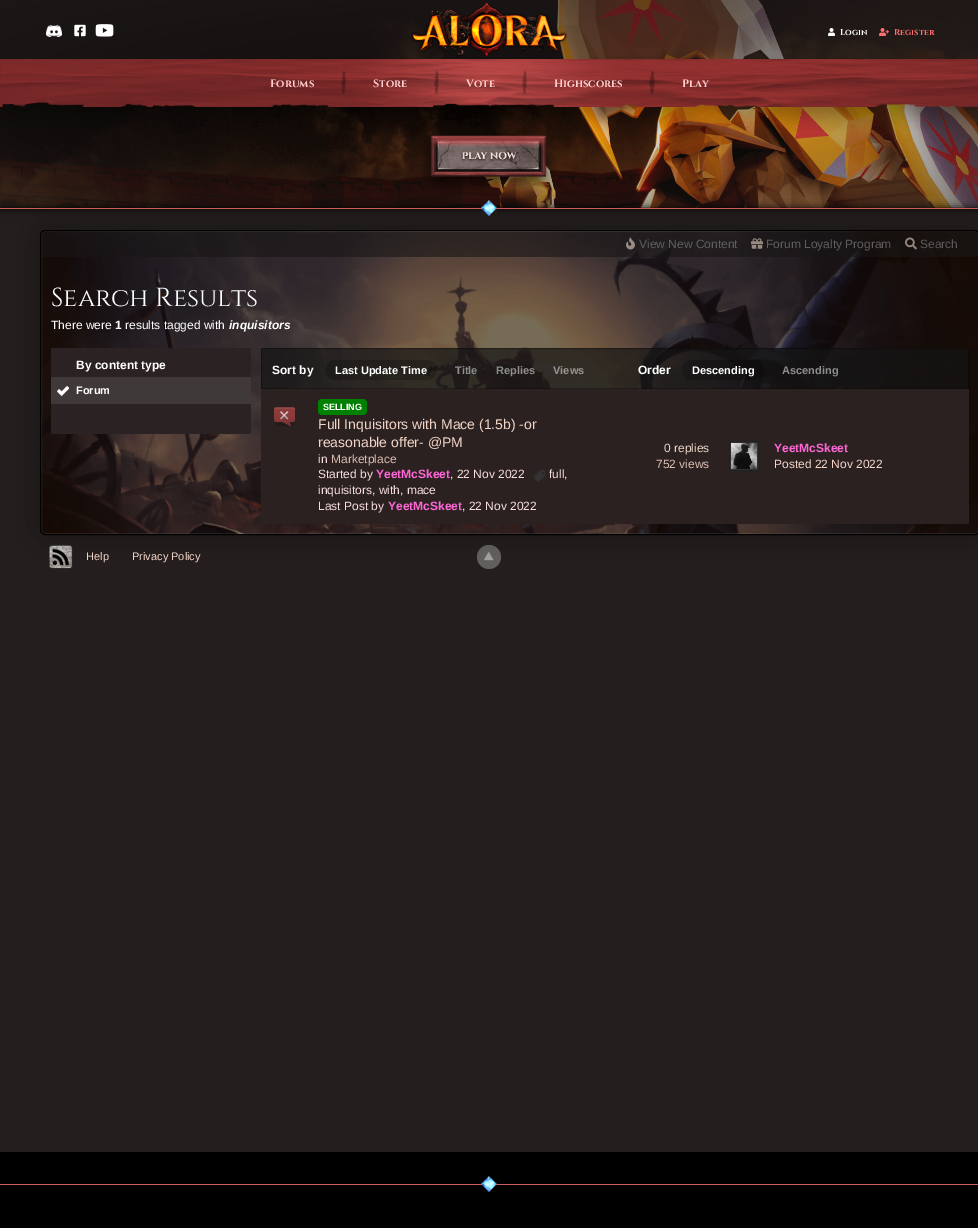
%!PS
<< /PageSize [978 1228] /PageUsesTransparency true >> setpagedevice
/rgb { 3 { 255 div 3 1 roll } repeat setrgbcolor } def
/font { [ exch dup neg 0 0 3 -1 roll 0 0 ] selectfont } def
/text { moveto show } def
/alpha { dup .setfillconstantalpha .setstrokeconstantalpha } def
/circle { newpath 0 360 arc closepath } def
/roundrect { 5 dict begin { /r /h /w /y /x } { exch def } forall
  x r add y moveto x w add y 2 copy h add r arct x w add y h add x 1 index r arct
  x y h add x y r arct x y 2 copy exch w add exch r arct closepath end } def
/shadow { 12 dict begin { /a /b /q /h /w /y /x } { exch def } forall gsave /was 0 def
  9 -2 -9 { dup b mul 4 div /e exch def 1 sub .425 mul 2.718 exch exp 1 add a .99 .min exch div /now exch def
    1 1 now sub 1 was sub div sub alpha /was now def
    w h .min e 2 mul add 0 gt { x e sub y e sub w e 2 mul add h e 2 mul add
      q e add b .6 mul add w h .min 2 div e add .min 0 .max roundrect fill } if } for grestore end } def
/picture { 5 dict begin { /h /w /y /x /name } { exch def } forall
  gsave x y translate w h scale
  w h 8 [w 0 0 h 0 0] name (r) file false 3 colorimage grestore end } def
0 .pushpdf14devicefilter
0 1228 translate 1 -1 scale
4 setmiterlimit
0 0 0 rgb
0 0 978 1228 rectfill
36 30 30 rgb
0 209 978 943 rectfill
(img_23.rgb) 49 544 24 25 picture
0 0 0 rgb
40 230 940 305 5 20 0.3 shadow
(img_01.rgb) 0 0 978 208 picture
(img_08.rgb) 0 55 978 76 picture
0.41 alpha
36 30 30 rgb
0 0 978 59 rectfill
1 alpha
(img_02.rgb) 46 25 16 12 picture
(img_03.rgb) 74 24 12 13 picture
(img_04.rgb) 95 24 19 13 picture
(img_05.rgb) 411 2 157 55 picture
(img_06.rgb) 828 28 7 8 picture
(img_07.rgb) 879 28 11 8 picture
(img_09.rgb) 341 70 5 25 picture
(img_10.rgb) 434 70 5 25 picture
(img_11.rgb) 522 70 5 25 picture
(img_12.rgb) 649 70 6 25 picture
(img_13.rgb) 423 135 133 60 picture
0 0 0 rgb
0 208 978 1 0 4 1 shadow
207 92 92 rgb
0 208 978 1 rectfill
(img_14.rgb) 481 200 16 16 picture
(img_15.rgb) 41 231 937 304 picture
0.08 alpha
255 255 255 rgb
41.5 231.5 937 302 3.5 roundrect stroke
1 alpha
0 0 0 rgb
40.5 230.5 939 304 4.5 roundrect stroke
0.6 alpha
24 22 22 rgb
47 232 moveto 926 0 rlineto 3 0 5 2 5 5 rcurveto 0 20 rlineto -936 0 rlineto 0 -20 rlineto 0 -3 2 -5 5 -5 rcurveto closepath fill
1 alpha
(img_16.rgb) 626 237 9 13 picture
(img_17.rgb) 751 238 12 11 picture
(img_18.rgb) 905 237 12 13 picture
43 35 35 rgb
51 348 moveto 200 0 rlineto 0 84 rlineto 0 1 -1 2 -2 2 rcurveto -196 0 rlineto -1 0 -2 -1 -2 -2 rcurveto closepath fill
64 57 57 rgb
51 377 200 1 rectfill
51 378 200 26 rectfill
(img_19.rgb) 57 386 12 10 picture
0.7 alpha
20 20 20 rgb
263 348 moveto 704 0 rlineto 1 0 2 1 2 2 rcurveto 0 39 rlineto -708 0 rlineto 0 -39 rlineto 0 -1 1 -2 2 -2 rcurveto closepath fill
0.3 alpha
0 0 0 rgb
263 348.5 moveto 704 0 rlineto 1 0 1.5 0.5 1.5 1.5 rcurveto 0 38.5 rlineto -707 0 rlineto 0 -38.5 rlineto 0 -1 0.5 -1.5 1.5 -1.5 rcurveto closepath stroke
0.2 alpha
325 360 112 20 10 roundrect fill
682 360 82 20 10 roundrect fill
1 alpha
43 33 33 rgb
261 389 708 135 rectfill
(img_20.rgb) 274 407 21 20 picture
0 128 0 rgb
318 399 49 16 4 roundrect fill
(img_21.rgb) 533 469 12 13 picture
50 50 50 rgb
729.5 441.5 moveto 29 0 rlineto 0 29 rlineto -29 0 rlineto closepath gsave fill grestore
33 33 33 rgb
stroke
(img_22.rgb) 731 443 26 26 picture
0.4 alpha
189 189 189 rgb
489 557 12 circle fill
1 alpha
(img_24.rgb) 484 552 10 9 picture
207 92 92 rgb
0 1184 978 1 rectfill
(img_25.rgb) 481 1176 16 16 picture
/Cinzel-Bold 8.5 font
255 255 255 rgb
(Login) 840 35 text
255 110 110 rgb
(Register) 894 35 text
/Cinzel-Bold 10.75 font
255 208 206 rgb
(Forums) 270 87 text
(Store) 373 87 text
(Vote) 466 87 text
(Highscores) 554 87 text
(Play) 682 87 text
/LiberationSans-Regular 12 font
96 94 95 rgb
(View New Content) 639 248 text
(Forum Loyalty Program) 766 248 text
92 90 89 rgb
(Search) 920 248 text
/Cinzel-Regular 26 font
255 255 255 rgb
(Search Results) 51 306 text
/LiberationSans-Regular 12 font
(There were) 51 329 text
/LiberationSans-Bold 12 font
(1) 115 329 text
/LiberationSans-Regular 12 font
(results tagged with) 125 329 text
/LiberationSans-BoldItalic 12 font
(inquisitors) 229 329 text
/LiberationSans-Bold 12 font
(By content type) 76 369 text
/LiberationSans-Bold 11 font
(Forum) 76 394 text
/LiberationSans-Bold 12 font
(Sort by) 272 374 text
/LiberationSans-Bold 11 font
(Last Update Time) 335 374 text
143 142 141 rgb
(Title) 455 374 text
(Replies) 496 374 text
152 150 147 rgb
(Views) 553 374 text
/LiberationSans-Bold 12 font
255 255 255 rgb
(Order) 638 374 text
/LiberationSans-Bold 11 font
(Descending) 692 374 text
143 142 141 rgb
(Ascending) 782 374 text
/LiberationSans-Bold 9 font
255 255 255 rgb
(SELLING) 323 410 text
/LiberationSans-Regular 14 font
243 213 199 rgb
(Full Inquisitors with Mace \(1.5b\) -or) 318 429 text
(reasonable offer- @PM) 318 447 text
/LiberationSans-Regular 12 font
247 222 221 rgb
(in) 318 463 text
218 188 174 rgb
(Marketplace) 331 463 text
247 222 221 rgb
(Started by) 318 478 text
/LiberationSans-Bold 12 font
255 102 214 rgb
(YeetMcSkeet) 376 478 text
/LiberationSans-Regular 12 font
247 222 221 rgb
(, 22 Nov 2022) 450 478 text
(full,) 549 478 text
(inquisitors, with, mace) 318 494 text
(Last Post by) 318 510 text
/LiberationSans-Bold 12 font
255 102 214 rgb
(YeetMcSkeet) 388 510 text
/LiberationSans-Regular 12 font
247 222 221 rgb
(, 22 Nov 2022) 462 510 text
232 213 194 rgb
(0 replies) 664 452 text
218 188 174 rgb
(752 views) 656 468 text
/LiberationSans-Bold 12 font
255 102 214 rgb
(YeetMcSkeet) 774 452 text
/LiberationSans-Regular 12 font
243 213 199 rgb
(Posted 22 Nov 2022) 774 468 text
/LiberationSans-Regular 11 font
(Help) 86 560 text
(Privacy Policy) 132 560 text
.poppdf14devicefilter showpage
